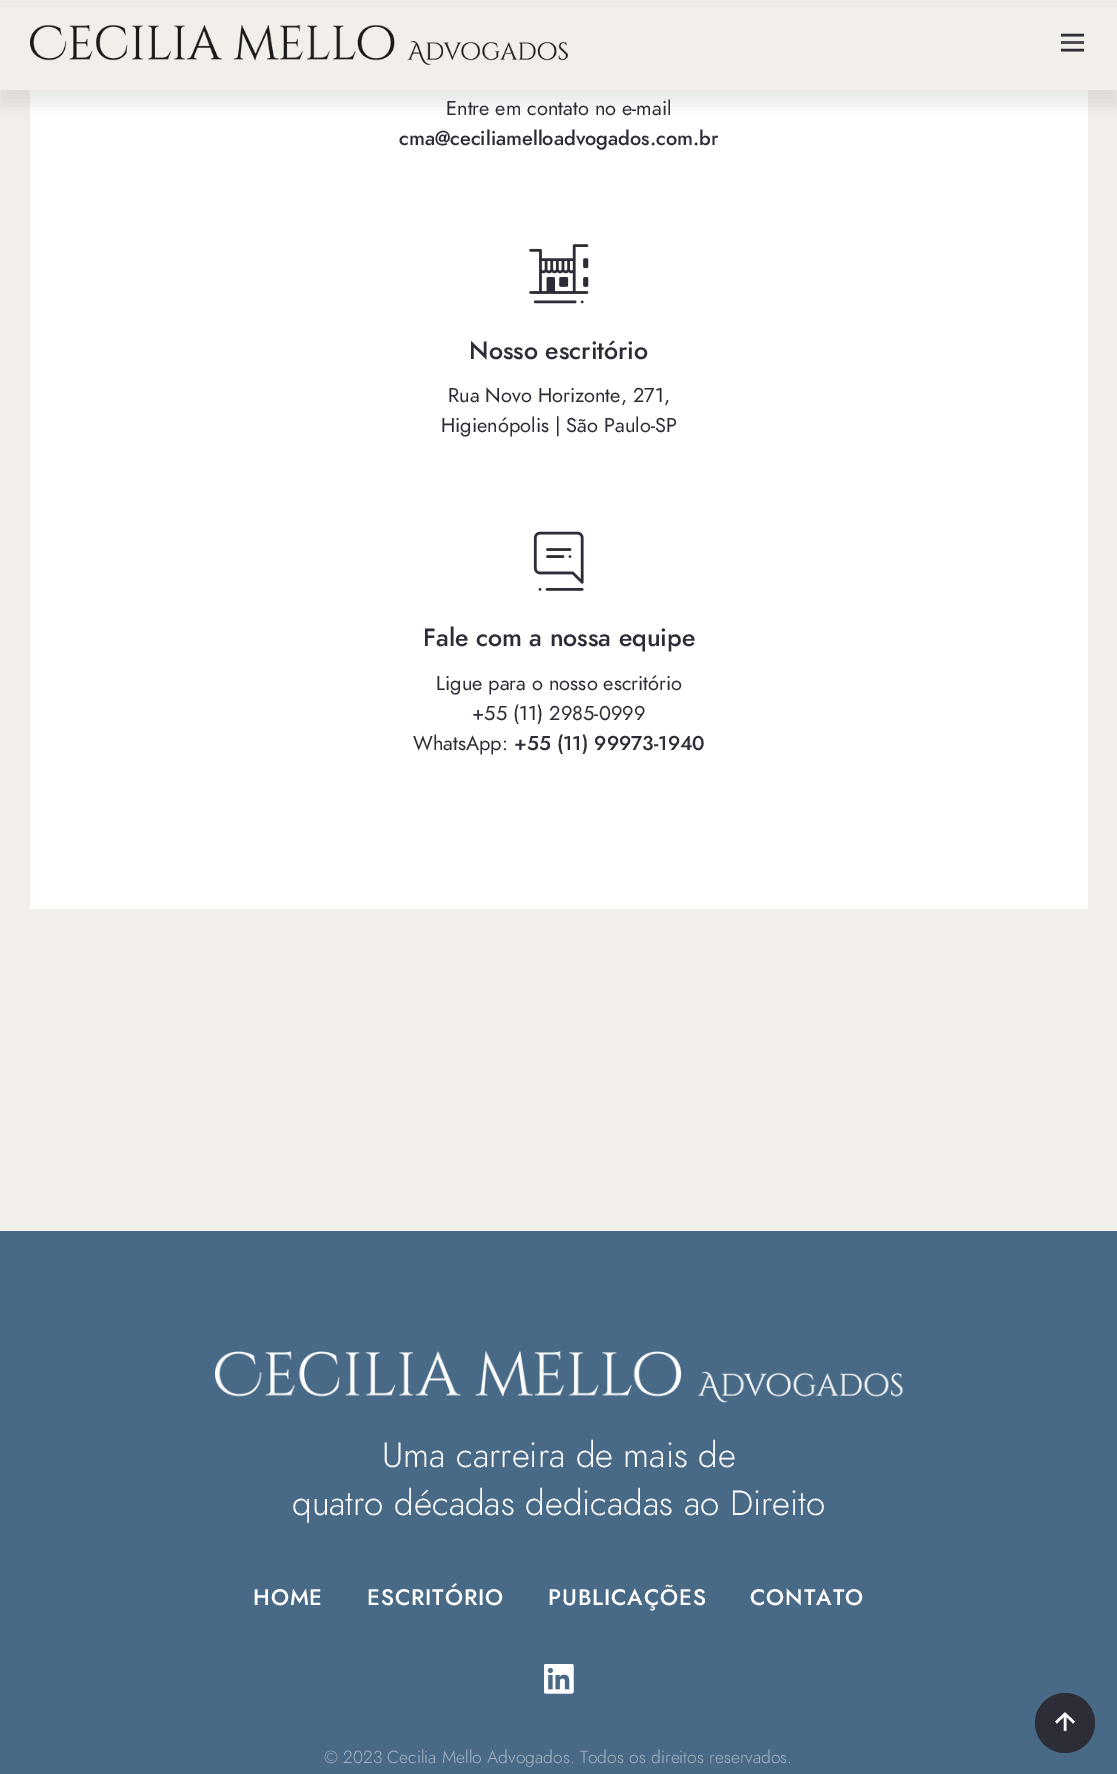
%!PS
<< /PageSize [1117 1774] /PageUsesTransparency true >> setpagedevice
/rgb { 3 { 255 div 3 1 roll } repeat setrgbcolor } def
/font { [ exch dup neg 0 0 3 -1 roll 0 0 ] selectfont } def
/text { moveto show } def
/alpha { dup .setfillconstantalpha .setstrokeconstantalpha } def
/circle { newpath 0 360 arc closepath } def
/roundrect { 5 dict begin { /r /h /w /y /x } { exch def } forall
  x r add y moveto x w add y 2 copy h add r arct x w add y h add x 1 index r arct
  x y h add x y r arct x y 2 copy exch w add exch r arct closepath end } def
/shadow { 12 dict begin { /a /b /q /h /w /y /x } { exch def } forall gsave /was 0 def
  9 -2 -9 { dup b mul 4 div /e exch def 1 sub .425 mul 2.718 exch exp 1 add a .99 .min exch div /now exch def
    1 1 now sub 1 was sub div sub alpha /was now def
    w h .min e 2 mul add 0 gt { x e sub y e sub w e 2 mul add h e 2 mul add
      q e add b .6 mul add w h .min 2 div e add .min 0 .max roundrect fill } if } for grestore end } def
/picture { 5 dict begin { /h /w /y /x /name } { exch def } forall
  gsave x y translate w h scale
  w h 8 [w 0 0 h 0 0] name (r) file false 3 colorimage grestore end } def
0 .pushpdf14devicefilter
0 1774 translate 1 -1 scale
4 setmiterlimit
242 239 234 rgb
0 0 1117 1774 rectfill
255 255 255 rgb
30 90 1058 819 rectfill
44 45 54 rgb
0 15 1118 90 0 7.5 0.1 shadow
242 239 234 rgb
0 7 1117 83 rectfill
(img_01.rgb) 30 25 538 40 picture
77 77 84 rgb
1061 41 23 3 rectfill
44 45 54 rgb
2.5 setlinewidth
1061 35 moveto 23 0 rlineto 1061 50 moveto 23 0 rlineto stroke
(img_02.rgb) 529 244 60 60 picture
(img_03.rgb) 533 531 51 60 picture
72 106 134 rgb
0 1231 1117 543 rectfill
(img_04.rgb) 215 1351 688 52 picture
(img_05.rgb) 544 1664 30 30 picture
44 45 54 rgb
1065 1723 30 circle fill
255 255 255 rgb
1056 1722.5 moveto 9 -8.5 rlineto 9 8.5 rlineto 1065 1731 moveto 0 -16 rlineto closepath stroke
/Jost-Regular 20 font
44 45 54 rgb
(Entre em contato no e-mail) 446 115 text
/Jost-Medium 20 font
(cma@ceciliamelloadvogados.com.br) 399 145 text
/Jost-Medium 25 font
(Nosso escritório) 469 359 text
/Jost-Regular 20 font
(Rua Novo Horizonte, 271,) 448 402 text
(Higienópolis | São Paulo-SP) 441 432 text
/Jost-Medium 25 font
(Fale com a nossa equipe) 423 646 text
/Jost-Regular 20 font
(Ligue para o nosso escritório) 436 690 text
(+55 \(11\) 2985-0999) 472 720 text
(WhatsApp:) 413 750 text
/Jost-Medium 20 font
(+55 \(11\) 99973-1940) 514 750 text
/Jost-Light 35 font
255 255 255 rgb
(Uma carreira de mais de) 382 1467 text
(quatro décadas dedicadas ao Direito) 292 1515 text
/Jost-Medium 22.5 font
253 1605 moveto 0.9 0 (HOME) ashow
367 1605 moveto 0.9 0 (ESCRITÓRIO) ashow
548 1605 moveto 0.9 0 (PUBLICAÇÕES) ashow
750 1605 moveto 0.9 0 (CONTATO) ashow
/Jost-Light 17.5 font
164 181 195 rgb
(© 2023 Cecilia Mello Advogados. Todos os direitos reservados.) 324 1763 text
.poppdf14devicefilter showpage
